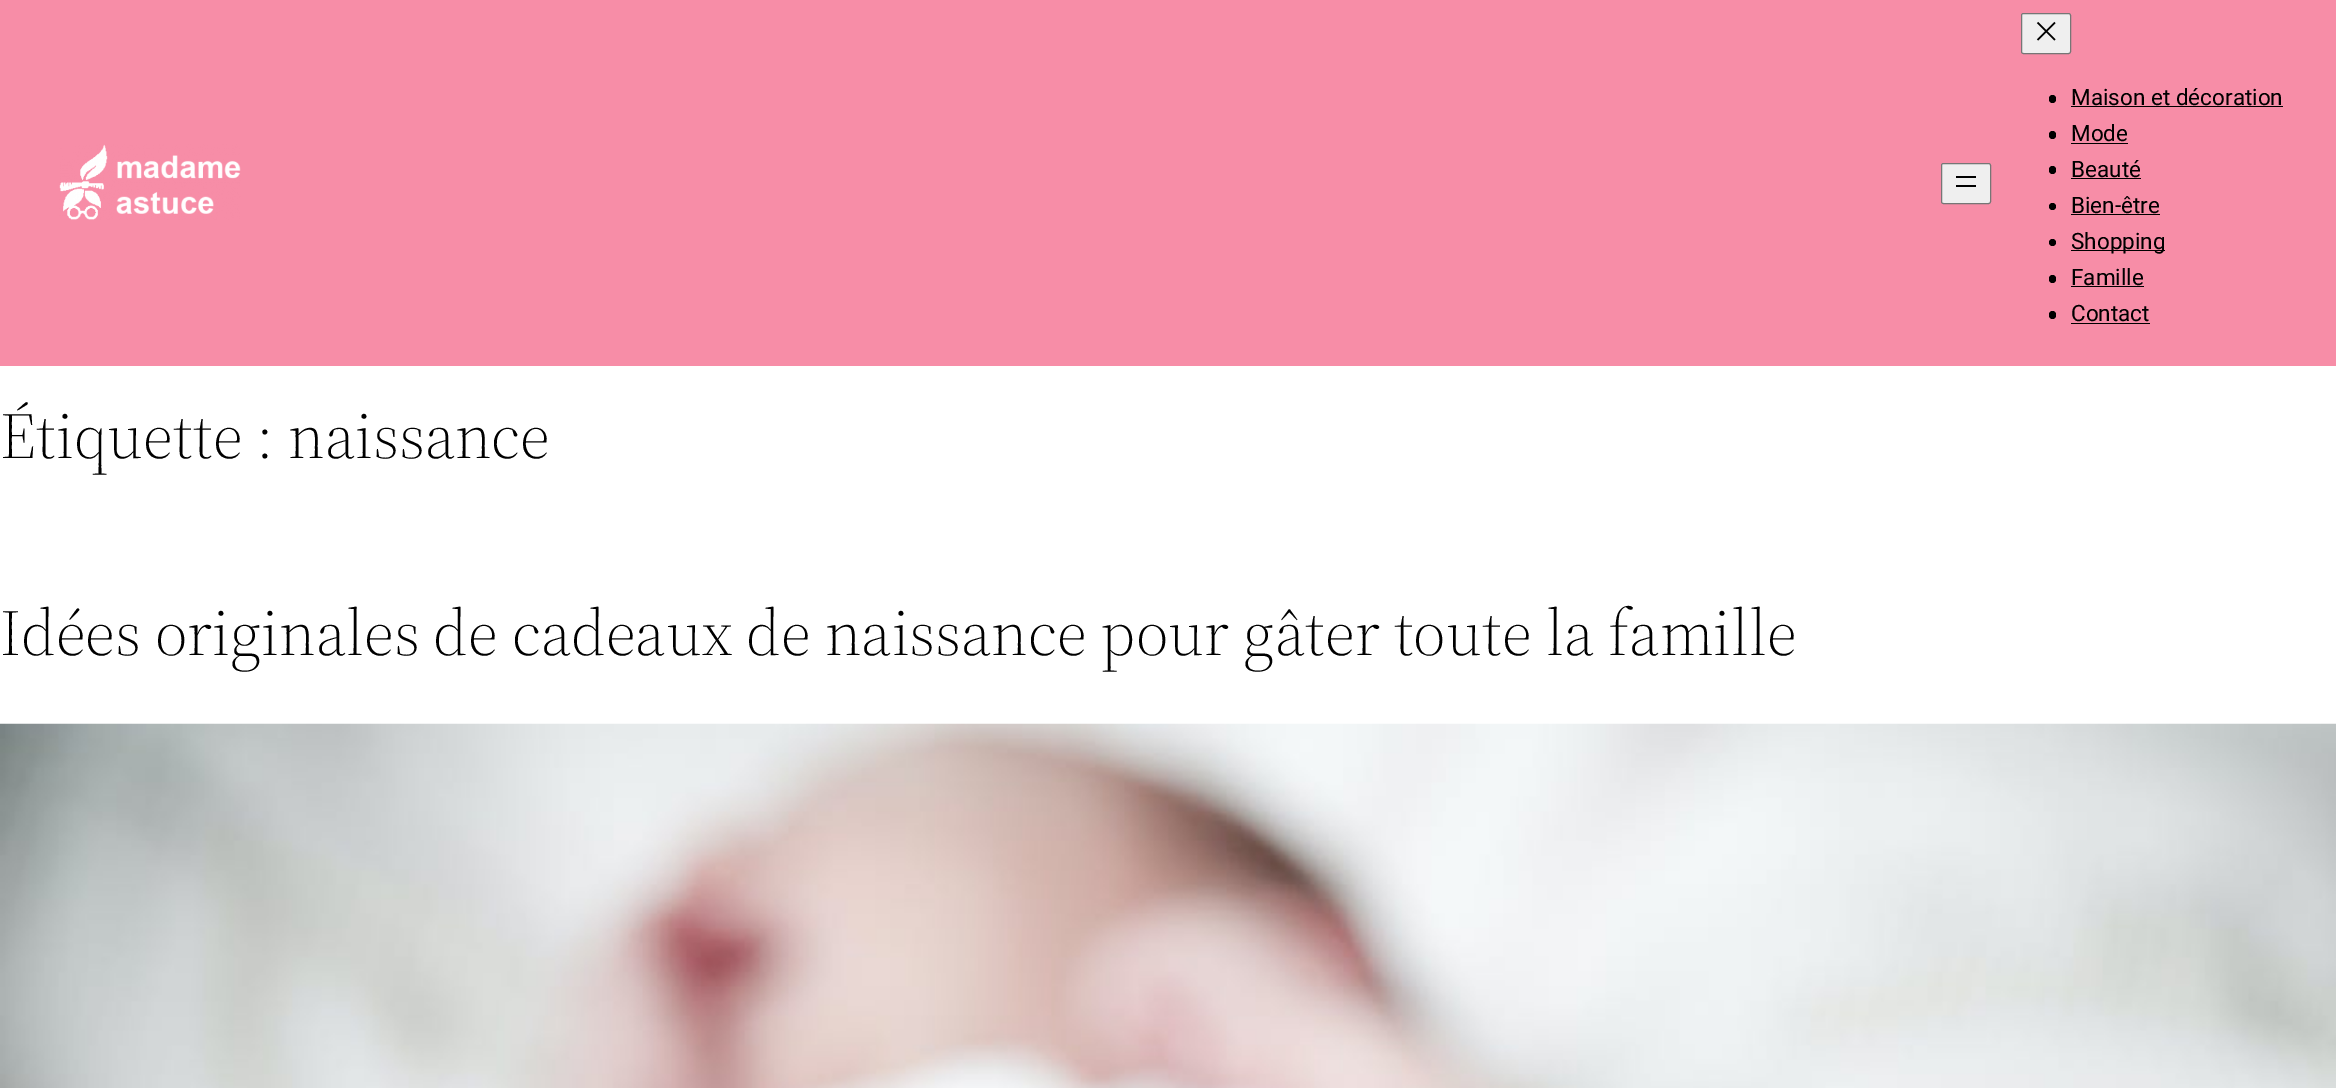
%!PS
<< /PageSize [2336 1088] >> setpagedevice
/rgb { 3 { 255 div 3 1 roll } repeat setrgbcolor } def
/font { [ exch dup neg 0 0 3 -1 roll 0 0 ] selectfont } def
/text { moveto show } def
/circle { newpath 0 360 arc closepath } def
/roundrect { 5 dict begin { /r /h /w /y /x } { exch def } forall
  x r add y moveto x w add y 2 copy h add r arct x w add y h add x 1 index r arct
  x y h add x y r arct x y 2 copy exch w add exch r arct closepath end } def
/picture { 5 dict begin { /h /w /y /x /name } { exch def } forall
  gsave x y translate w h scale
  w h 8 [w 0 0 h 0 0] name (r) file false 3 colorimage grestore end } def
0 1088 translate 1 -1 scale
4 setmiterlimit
255 255 255 rgb
0 0 2336 1088 rectfill
247 141 167 rgb
0 0 2336 366 rectfill
(img_01.rgb) 59 144 182 76 picture
239 239 239 rgb
1941.5 163.5 49 40 2 roundrect gsave fill grestore
118 118 118 rgb
stroke
0 0 0 rgb
1956 176 20 2 rectfill
1956 185 20 2 rectfill
239 239 239 rgb
2021.5 13.5 49 40 2 roundrect gsave fill grestore
118 118 118 rgb
stroke
(img_02.rgb) 2036 21 20 20 picture
0 0 0 rgb
2049 95 7 8 3.5 roundrect fill
2071 106 212 1 rectfill
2049 131 7 8 3.5 roundrect fill
2071 143 57 1 rectfill
2049 166 7 8 3.5 roundrect fill
2071 178 70 1 rectfill
2052.5 206.5 3.5 circle fill
2071 214 89 1 rectfill
2052.5 242.5 3.5 circle fill
2071 250 94 1 rectfill
2049 275 7 8 3.5 roundrect fill
2071 286 73 1 rectfill
2049 311 7 8 3.5 roundrect fill
2071 323 79 1 rectfill
(img_03.rgb) 0 723 2336 365 picture
/Roboto-Regular 22.5 font
(Maison et décoration) 2071 105 text
(Mode) 2071 141 text
(Beauté) 2071 177 text
(Bien-être) 2071 213 text
(Shopping) 2071 249 text
(Famille) 2071 285 text
(Contact) 2071 321 text
/SourceSerif4-Light 65 font
(Étiquette : naissance) 0 458 text
(Idées originales de cadeaux de naissance pour gâter toute la famille) 0 655 text
showpage
